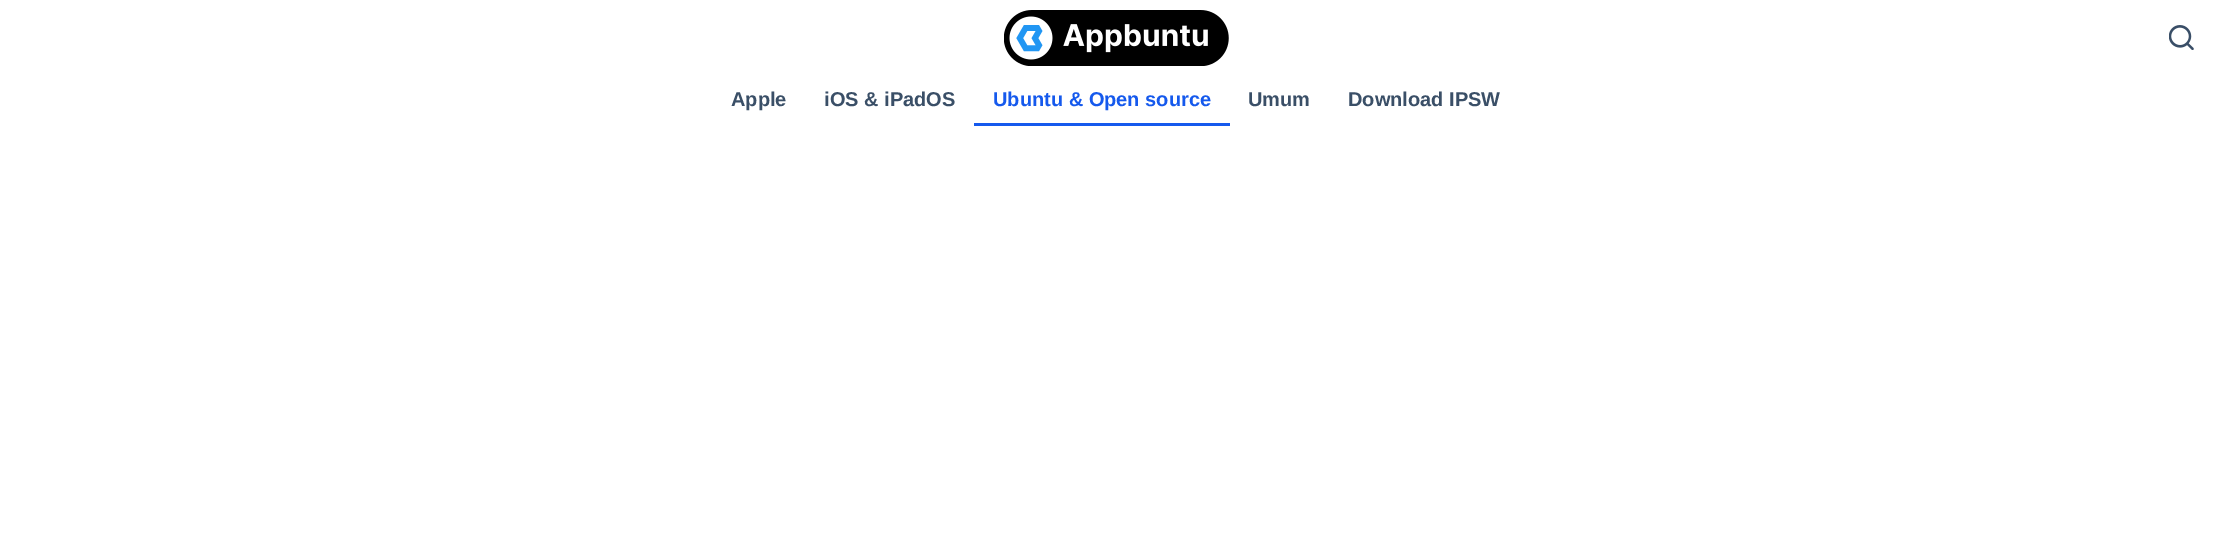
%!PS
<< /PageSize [2231 544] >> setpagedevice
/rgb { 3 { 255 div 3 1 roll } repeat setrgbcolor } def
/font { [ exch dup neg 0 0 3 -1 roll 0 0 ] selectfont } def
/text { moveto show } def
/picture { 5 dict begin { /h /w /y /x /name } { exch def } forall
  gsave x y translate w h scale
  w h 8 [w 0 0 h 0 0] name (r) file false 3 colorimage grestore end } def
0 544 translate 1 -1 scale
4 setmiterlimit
255 255 255 rgb
0 0 2231 544 rectfill
(img_01.rgb) 1004 10 225 56 picture
(img_02.rgb) 2169 25 25 25 picture
21 89 237 rgb
974 123 256 3 rectfill
/LiberationSans-Bold 20 font
58 79 103 rgb
(Apple) 731 106 text
(iOS & iPadOS) 824 106 text
21 89 237 rgb
(Ubuntu & Open source) 993 106 text
58 79 103 rgb
(Umum) 1248 106 text
(Download IPSW) 1348 106 text
showpage
